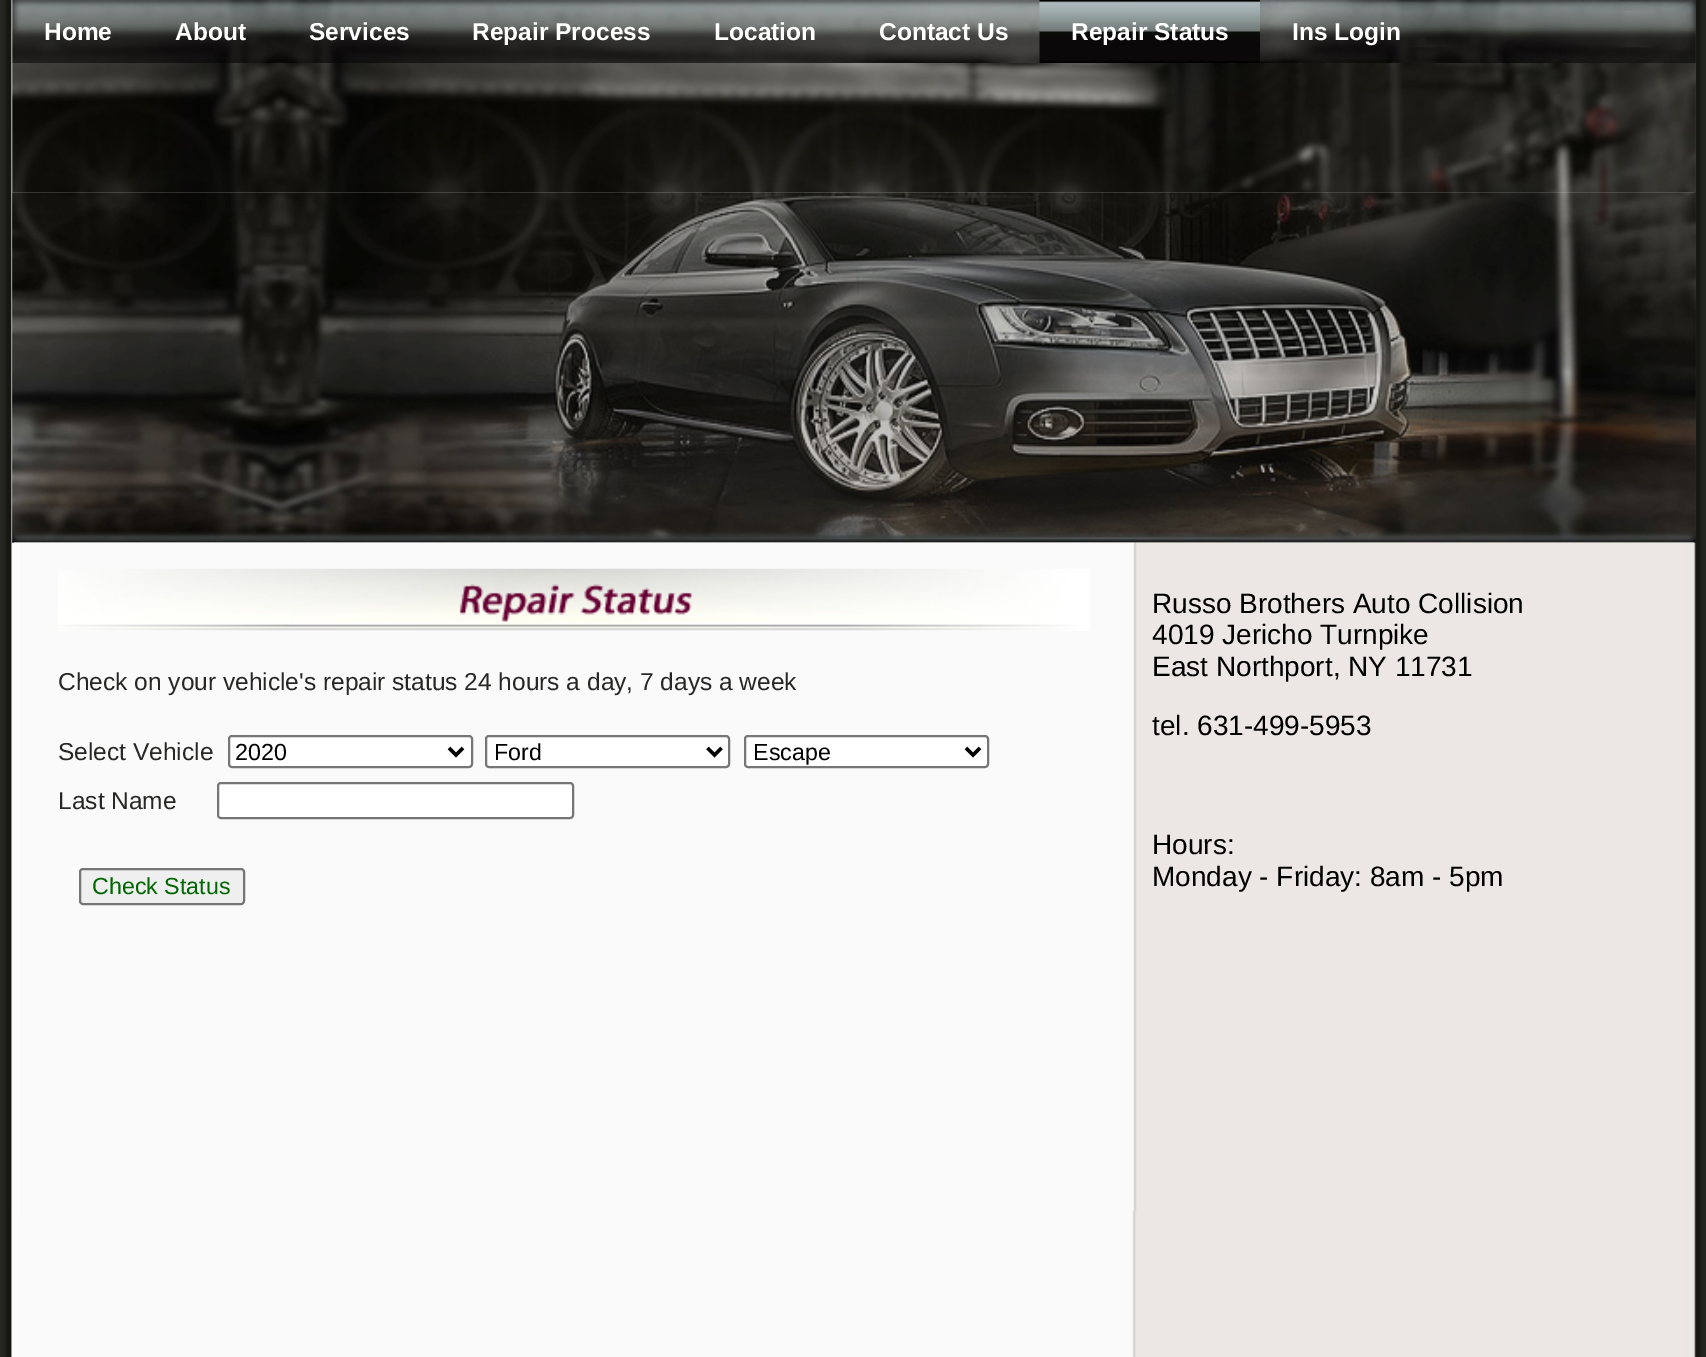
%!PS
<< /PageSize [1706 1357] >> setpagedevice
/rgb { 3 { 255 div 3 1 roll } repeat setrgbcolor } def
/font { [ exch dup neg 0 0 3 -1 roll 0 0 ] selectfont } def
/text { moveto show } def
/roundrect { 5 dict begin { /r /h /w /y /x } { exch def } forall
  x r add y moveto x w add y 2 copy h add r arct x w add y h add x 1 index r arct
  x y h add x y r arct x y 2 copy exch w add exch r arct closepath end } def
/picture { 5 dict begin { /h /w /y /x /name } { exch def } forall
  gsave x y translate w h scale
  w h 8 [w 0 0 h 0 0] name (r) file false 3 colorimage grestore end } def
0 1357 translate 1 -1 scale
4 setmiterlimit
255 255 255 rgb
0 0 1706 1357 rectfill
(img_01.rgb) 0 0 1706 1357 picture
(img_02.rgb) 12 0 1684 63 picture
(img_03.rgb) 1039 0 221 63 picture
(img_04.rgb) 12 63 1684 130 picture
(img_05.rgb) 12 192 1684 351 picture
(img_06.rgb) 12 192 1684 351 picture
(img_07.rgb) 14 542 1680 669 picture
(img_08.rgb) 58 568 1032 63 picture
229 736 243 31 3 roundrect gsave fill grestore
118 118 118 rgb
2 setlinewidth
stroke
0 0 0 rgb
3.5 setlinewidth
449 748 moveto 7 7 rlineto 7 -7 rlineto stroke
255 255 255 rgb
486 736 243 31 3 roundrect gsave fill grestore
118 118 118 rgb
2 setlinewidth
stroke
0 0 0 rgb
3.5 setlinewidth
707.5 748 moveto 7 7 rlineto 7 -7 rlineto stroke
255 255 255 rgb
745 736 243 31 3 roundrect gsave fill grestore
118 118 118 rgb
2 setlinewidth
stroke
0 0 0 rgb
3.5 setlinewidth
966 748 moveto 7 7 rlineto 7 -7 rlineto stroke
255 255 255 rgb
218 783 355 35 3 roundrect gsave fill grestore
118 118 118 rgb
2 setlinewidth
stroke
239 239 239 rgb
80 869 164 35 3 roundrect gsave fill grestore
118 118 118 rgb
stroke
/LiberationSans-Bold 24.5 font
255 255 255 rgb
(Home) 44 40 text
(About) 175 40 text
(Services) 309 40 text
(Repair Process) 472 40 text
(Location) 714 40 text
(Contact Us) 879 40 text
(Repair Status) 1071 40 text
(Ins Login) 1292 40 text
/LiberationSans-Regular 24.5 font
40 39 37 rgb
(Check on your vehicle's repair status 24 hours a day, 7 days a week) 58 690 text
(Select Vehicle) 58 760 text
/LiberationSans-Regular 23.25 font
0 0 0 rgb
(2020) 235 760 text
(Ford) 494 760 text
(Escape) 753 760 text
/LiberationSans-Regular 24.5 font
40 39 37 rgb
(Last Name) 58 809 text
/LiberationSans-Regular 23.25 font
0 102 0 rgb
(Check Status) 92 894 text
/LiberationSans-Regular 28 font
0 0 0 rgb
(Russo Brothers Auto Collision) 1152 613 text
(4019 Jericho Turnpike) 1152 644 text
(East Northport, NY 11731) 1152 676 text
(tel. 631-499-5953) 1152 735 text
(Hours:) 1152 854 text
(Monday - Friday: 8am - 5pm) 1152 886 text
showpage
